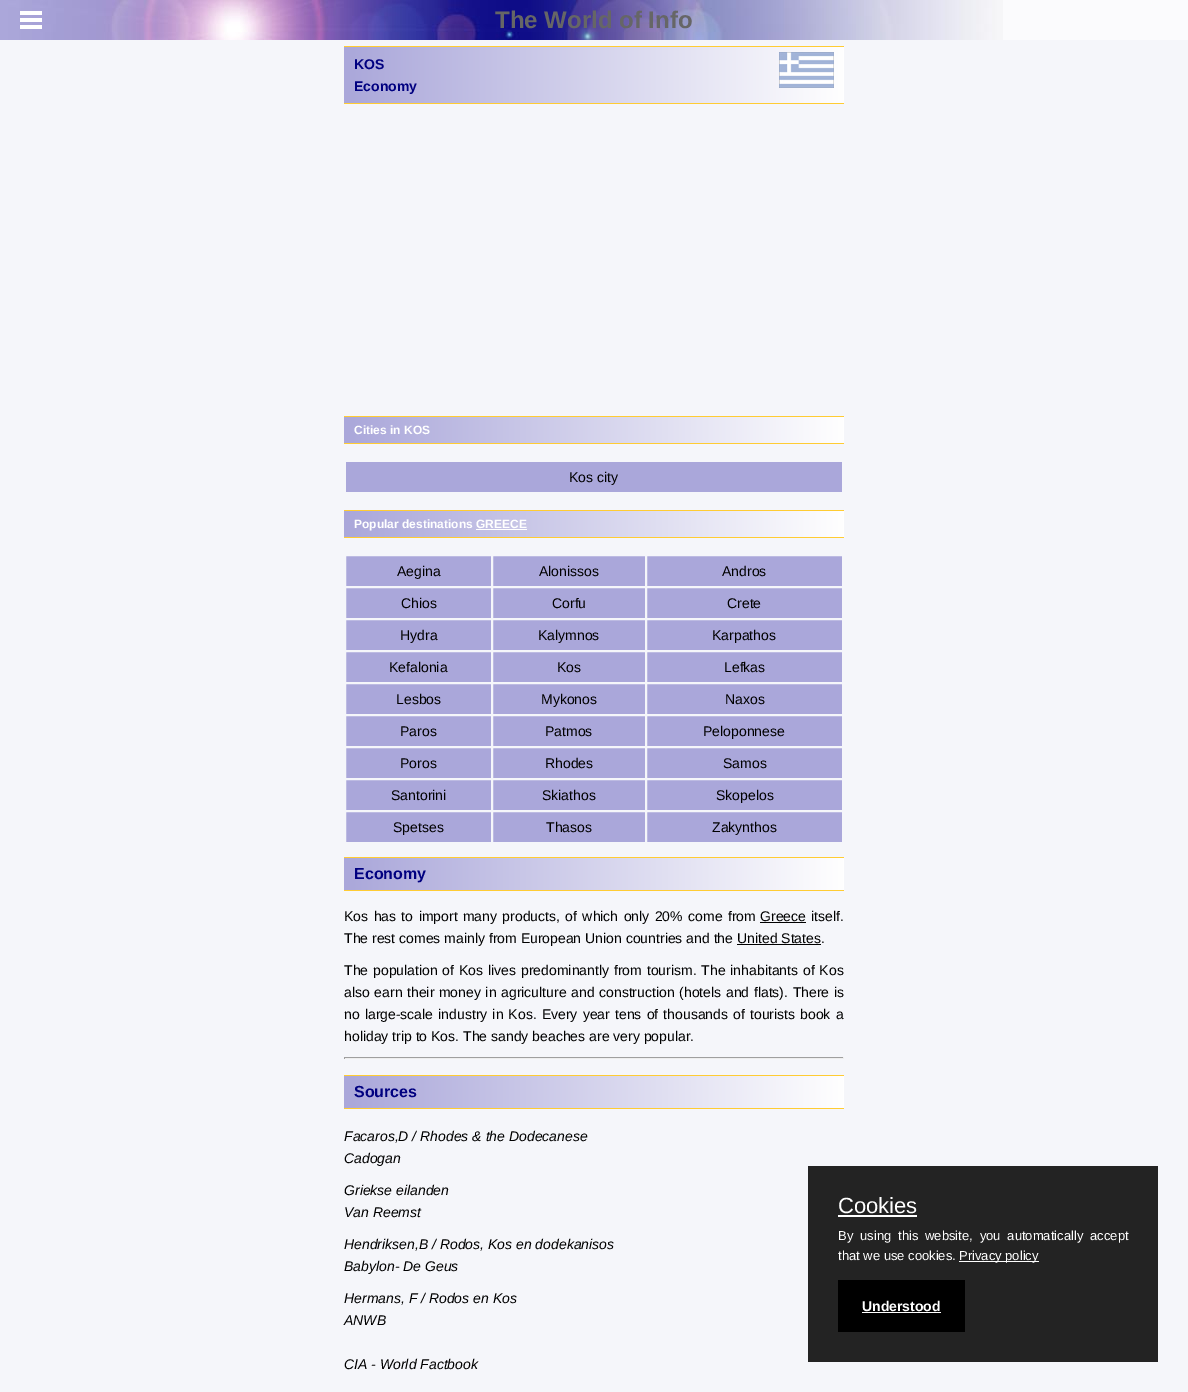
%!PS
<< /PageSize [1188 1392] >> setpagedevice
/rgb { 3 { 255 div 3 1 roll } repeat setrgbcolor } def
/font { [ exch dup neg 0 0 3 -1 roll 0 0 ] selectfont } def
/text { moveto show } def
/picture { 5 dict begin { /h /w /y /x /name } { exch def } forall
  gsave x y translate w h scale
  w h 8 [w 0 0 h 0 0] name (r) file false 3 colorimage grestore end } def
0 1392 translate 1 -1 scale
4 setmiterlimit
245 246 250 rgb
0 0 1188 1392 rectfill
251 251 253 rgb
1003 0 185 40 rectfill
(img_01.rgb) 0 0 1003 40 picture
(img_02.rgb) 20 11 22 18 picture
gsave 344 47 moveto 500 0 rlineto 0 56 rlineto -500 0 rlineto closepath clip newpath
<< /ShadingType 2 /ColorSpace /DeviceRGB /Coords [344 75 844 75] /Extend [true true] /Function << /FunctionType 2 /Domain [0 1] /C0 [0.667 0.655 0.855] /C1 [1 1 1] /N 1 >> >> shfill grestore
255 204 51 rgb
344 46 500 1 rectfill
344 103 500 1 rectfill
(img_03.rgb) 779 52 55 36 picture
gsave 344 417 moveto 500 0 rlineto 0 26 rlineto -500 0 rlineto closepath clip newpath
<< /ShadingType 2 /ColorSpace /DeviceRGB /Coords [344 430 844 430] /Extend [true true] /Function << /FunctionType 2 /Domain [0 1] /C0 [0.667 0.655 0.855] /C1 [1 1 1] /N 1 >> >> shfill grestore
344 416 500 1 rectfill
344 443 500 1 rectfill
170 167 218 rgb
346 462 496 30 rectfill
gsave 344 511 moveto 500 0 rlineto 0 26 rlineto -500 0 rlineto closepath clip newpath
<< /ShadingType 2 /ColorSpace /DeviceRGB /Coords [344 524 844 524] /Extend [true true] /Function << /FunctionType 2 /Domain [0 1] /C0 [0.667 0.655 0.855] /C1 [1 1 1] /N 1 >> >> shfill grestore
255 204 51 rgb
344 510 500 1 rectfill
344 537 500 1 rectfill
255 255 255 rgb
476 529 51 1 rectfill
170 167 218 rgb
346 556 496 30 rectfill
245 246 250 rgb
345.5 555.5 146 31 rectstroke
492.5 555.5 153 31 rectstroke
646.5 555.5 196 31 rectstroke
170 167 218 rgb
346 588 496 30 rectfill
245 246 250 rgb
345.5 587.5 146 31 rectstroke
492.5 587.5 153 31 rectstroke
646.5 587.5 196 31 rectstroke
170 167 218 rgb
346 620 496 30 rectfill
245 246 250 rgb
345.5 619.5 146 31 rectstroke
492.5 619.5 153 31 rectstroke
646.5 619.5 196 31 rectstroke
170 167 218 rgb
346 652 496 30 rectfill
245 246 250 rgb
345.5 651.5 146 31 rectstroke
492.5 651.5 153 31 rectstroke
646.5 651.5 196 31 rectstroke
170 167 218 rgb
346 684 496 30 rectfill
245 246 250 rgb
345.5 683.5 146 31 rectstroke
492.5 683.5 153 31 rectstroke
646.5 683.5 196 31 rectstroke
170 167 218 rgb
346 716 496 30 rectfill
245 246 250 rgb
345.5 715.5 146 31 rectstroke
492.5 715.5 153 31 rectstroke
646.5 715.5 196 31 rectstroke
170 167 218 rgb
346 748 496 30 rectfill
245 246 250 rgb
345.5 747.5 146 31 rectstroke
492.5 747.5 153 31 rectstroke
646.5 747.5 196 31 rectstroke
170 167 218 rgb
346 780 496 30 rectfill
245 246 250 rgb
345.5 779.5 146 31 rectstroke
492.5 779.5 153 31 rectstroke
646.5 779.5 196 31 rectstroke
170 167 218 rgb
346 812 496 30 rectfill
245 246 250 rgb
345.5 811.5 146 31 rectstroke
492.5 811.5 153 31 rectstroke
646.5 811.5 196 31 rectstroke
gsave 344 858 moveto 500 0 rlineto 0 32 rlineto -500 0 rlineto closepath clip newpath
<< /ShadingType 2 /ColorSpace /DeviceRGB /Coords [344 874 844 874] /Extend [true true] /Function << /FunctionType 2 /Domain [0 1] /C0 [0.667 0.655 0.855] /C1 [1 1 1] /N 1 >> >> shfill grestore
255 204 51 rgb
344 857 500 1 rectfill
344 890 500 1 rectfill
0 0 0 rgb
760 922 46 1 rectfill
737 944 84 1 rectfill
159 159 159 rgb
344 1057 500 1 rectfill
238 238 238 rgb
843 1057 1 2 rectfill
344 1058 500 1 rectfill
159 159 159 rgb
344 1057 1 2 rectfill
gsave 344 1076 moveto 500 0 rlineto 0 32 rlineto -500 0 rlineto closepath clip newpath
<< /ShadingType 2 /ColorSpace /DeviceRGB /Coords [344 1092 844 1092] /Extend [true true] /Function << /FunctionType 2 /Domain [0 1] /C0 [0.667 0.655 0.855] /C1 [1 1 1] /N 1 >> >> shfill grestore
255 204 51 rgb
344 1075 500 1 rectfill
344 1108 500 1 rectfill
35 35 35 rgb
808 1166 350 196 rectfill
255 255 255 rgb
838 1215 79 2 rectfill
959 1261 80 1 rectfill
0 0 0 rgb
838 1280 127 52 rectfill
255 255 255 rgb
862 1312 79 1 rectfill
/LiberationSans-Bold 24 font
102 102 102 rgb
(The World of Info) 495 28 text
/LiberationSans-Bold 14 font
0 0 128 rgb
(KOS) 354 69 text
(Economy) 354 91 text
/LiberationSans-Bold 12 font
255 255 255 rgb
(Cities in KOS) 354 434 text
/LiberationSans-Regular 14 font
0 0 0 rgb
(Kos city) 569 482 text
/LiberationSans-Bold 12 font
255 255 255 rgb
(Popular destinations GREECE) 354 528 text
/LiberationSans-Regular 14 font
0 0 0 rgb
(Aegina) 397 576 text
(Alonissos) 539 576 text
(Andros) 722 576 text
(Chios) 401 608 text
(Corfu) 552 608 text
(Crete) 727 608 text
(Hydra) 400 640 text
(Kalymnos) 538 640 text
(Karpathos) 712 640 text
(Kefalonia) 389 672 text
(Kos) 557 672 text
(Lefkas) 724 672 text
(Lesbos) 396 704 text
(Mykonos) 541 704 text
(Naxos) 725 704 text
(Paros) 400 736 text
(Patmos) 545 736 text
(Peloponnese) 703 736 text
(Poros) 400 768 text
(Rhodes) 545 768 text
(Samos) 723 768 text
(Santorini) 391 800 text
(Skiathos) 542 800 text
(Skopelos) 716 800 text
(Spetses) 393 832 text
(Thasos) 546 832 text
(Zakynthos) 712 832 text
/LiberationSans-Bold 16 font
0 0 128 rgb
(Economy) 354 879 text
/LiberationSans-Regular 14 font
0 0 0 rgb
344 921 moveto 1.5 0 32 (Kos has to import many products, of which only 20% come from) widthshow
(Greece) 760 921 text
(itself.) 811 921 text
(The rest comes mainly from European Union countries and the United States.) 344 943 text
344 975 moveto 1 0 32 (The population of Kos lives predominantly from tourism. The inhabitants of Kos) widthshow
344 997 moveto 0.75 0 32 (also earn their money in agriculture and construction \(hotels and flats\). There is) widthshow
344 1019 moveto 1.25 0 32 (no large-scale industry in Kos. Every year tens of thousands of tourists book a) widthshow
(holiday trip to Kos. The sandy beaches are very popular.) 344 1041 text
/LiberationSans-Bold 16 font
0 0 128 rgb
(Sources) 354 1097 text
/LiberationSans-Italic 14 font
0 0 0 rgb
(Facaros,D / Rhodes & the Dodecanese) 344 1141 text
(Cadogan) 344 1163 text
(Griekse eilanden) 344 1195 text
(Van Reemst) 344 1217 text
(Hendriksen,B / Rodos, Kos en dodekanisos) 344 1249 text
(Babylon- De Geus) 344 1271 text
(Hermans, F / Rodos en Kos) 344 1303 text
(ANWB) 344 1325 text
(CIA - World Factbook) 344 1369 text
/LiberationSans-Regular 22 font
255 255 255 rgb
(Cookies) 838 1213 text
/LiberationSans-Regular 13 font
838 1240 moveto 3.25 0 32 (By using this website, you automatically accept) widthshow
(that we use cookies.) 838 1260 text
(Privacy policy) 959 1260 text
/LiberationSans-Bold 14 font
(Understood) 862 1311 text
showpage
